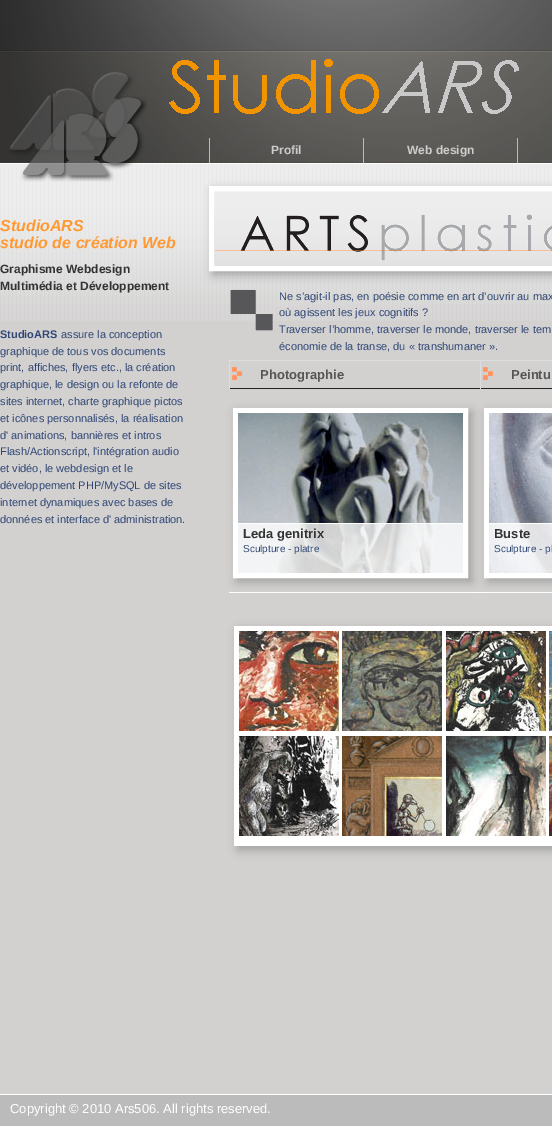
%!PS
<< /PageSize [552 1126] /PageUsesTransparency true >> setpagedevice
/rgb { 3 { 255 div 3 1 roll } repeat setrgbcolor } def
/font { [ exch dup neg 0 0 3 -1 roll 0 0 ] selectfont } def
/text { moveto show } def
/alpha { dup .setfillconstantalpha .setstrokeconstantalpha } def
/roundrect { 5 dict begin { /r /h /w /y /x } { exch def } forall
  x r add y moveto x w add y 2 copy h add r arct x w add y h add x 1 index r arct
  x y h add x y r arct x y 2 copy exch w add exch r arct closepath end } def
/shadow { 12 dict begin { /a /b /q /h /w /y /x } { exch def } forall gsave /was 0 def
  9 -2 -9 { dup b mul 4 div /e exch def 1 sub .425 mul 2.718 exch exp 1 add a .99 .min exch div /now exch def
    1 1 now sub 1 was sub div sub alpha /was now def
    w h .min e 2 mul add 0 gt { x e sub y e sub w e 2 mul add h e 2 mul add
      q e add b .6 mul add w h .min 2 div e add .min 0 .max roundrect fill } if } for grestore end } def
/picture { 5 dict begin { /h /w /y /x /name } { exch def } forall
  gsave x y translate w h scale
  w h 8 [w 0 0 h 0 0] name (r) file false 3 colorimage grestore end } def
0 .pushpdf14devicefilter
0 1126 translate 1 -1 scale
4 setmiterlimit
210 209 208 rgb
0 0 552 1126 rectfill
(img_01.rgb) 0 164 552 157 picture
(img_02.rgb) 0 0 552 164 picture
(img_03.rgb) 21 96 126 86 picture
187 187 187 rgb
209 138 1 25 rectfill
363 138 1 25 rectfill
517 138 1 25 rectfill
158 158 158 rgb
213 190 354 85 0 5 1 shadow
(img_04.rgb) 214 191 338 75 picture
255 255 255 rgb
5 setlinewidth
211.5 188.5 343 80 rectstroke
(img_05.rgb) 214 214 338 47 picture
(img_06.rgb) 230 289 43 42 picture
(img_07.rgb) 232 367 10 13 picture
221 221 221 rgb
229 360 323 1 rectfill
34 34 34 rgb
229 388 323 1 rectfill
221 221 221 rgb
229 360 1 29 rectfill
(img_07.rgb) 483 367 10 13 picture
480 360 1 29 rectfill
255 255 255 rgb
229 592 323 1 rectfill
158 158 158 rgb
237 412 235 170 0 5 1 shadow
255 255 255 rgb
235.5 410.5 230 165 rectstroke
(img_08.rgb) 238 413 225 160 picture
0.79 alpha
238 524 225 49 rectfill
1 alpha
238 523 226 1 rectfill
158 158 158 rgb
488 412 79 170 0 5 1 shadow
255 255 255 rgb
486.5 410.5 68 165 rectstroke
(img_09.rgb) 489 413 63 160 picture
0.79 alpha
489 524 63 49 rectfill
1 alpha
489 523 63 1 rectfill
158 158 158 rgb
238 630 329 220 0 5 1 shadow
255 255 255 rgb
234 626 318 220 rectfill
(img_10.rgb) 239 631 100 100 picture
(img_11.rgb) 342 631 100 100 picture
(img_12.rgb) 446 631 100 100 picture
(img_13.rgb) 549 631 3 100 picture
(img_14.rgb) 239 736 100 100 picture
(img_15.rgb) 342 736 100 100 picture
(img_16.rgb) 446 736 100 100 picture
(img_17.rgb) 549 736 3 100 picture
187 187 187 rgb
0 1095 552 31 rectfill
255 255 255 rgb
0 1094 552 1 rectfill
/LiberationSans-Bold 12 font
204 204 204 rgb
(Profil) 271 154 text
(Web design) 407 154 text
/LiberationSans-BoldItalic 16 font
255 153 51 rgb
(StudioARS) 0 231 text
(studio de création Web) 0 248 text
/LiberationSans-Bold 12 font
51 51 51 rgb
(Graphisme Webdesign) 0 273 text
(Multimédia et Développement) 0 290 text
/LiberationSans-Bold 11 font
47 70 117 rgb
(StudioARS) 0 338 text
/LiberationSans-Regular 11 font
(assure la conception) 61 338 text
(graphique de tous vos documents) 0 355 text
(print, affiches, flyers etc., la création) 0 371 text
(graphique, le design ou la refonte de) 0 388 text
(sites internet, charte graphique pictos) 0 405 text
(et icônes personnalisés, la réalisation) 0 422 text
(d' animations, bannières et intros) 0 439 text
(Flash/Actionscript, l'intégration audio) 0 455 text
(et vidéo, le webdesign et le) 0 472 text
(développement PHP/MySQL de sites) 0 489 text
(internet dynamiques avec bases de) 0 506 text
(données et interface d' administration.) 0 523 text
(Ne s’agit-il pas, en poésie comme en art d’ouvrir au max) 279 300 text
(où agissent les jeux cognitifs ?) 279 316 text
(Traverser l’homme, traverser le monde, traverser le tem) 279 333 text
(économie de la transe, du « transhumaner ».) 279 350 text
/LiberationSans-Bold 13 font
85 85 85 rgb
(Photographie) 260 379 text
(Peintu) 511 379 text
51 51 51 rgb
(Leda genitrix) 243 538 text
/LiberationSans-Regular 10 font
47 70 117 rgb
(Sculpture - platre) 243 552 text
/LiberationSans-Bold 13 font
51 51 51 rgb
(Buste) 494 538 text
/LiberationSans-Regular 10 font
47 70 117 rgb
(Sculpture - pl) 494 552 text
/LiberationSans-Regular 13 font
255 255 255 rgb
(Copyright © 2010 Ars506. All rights reserved.) 10 1113 text
.poppdf14devicefilter showpage
